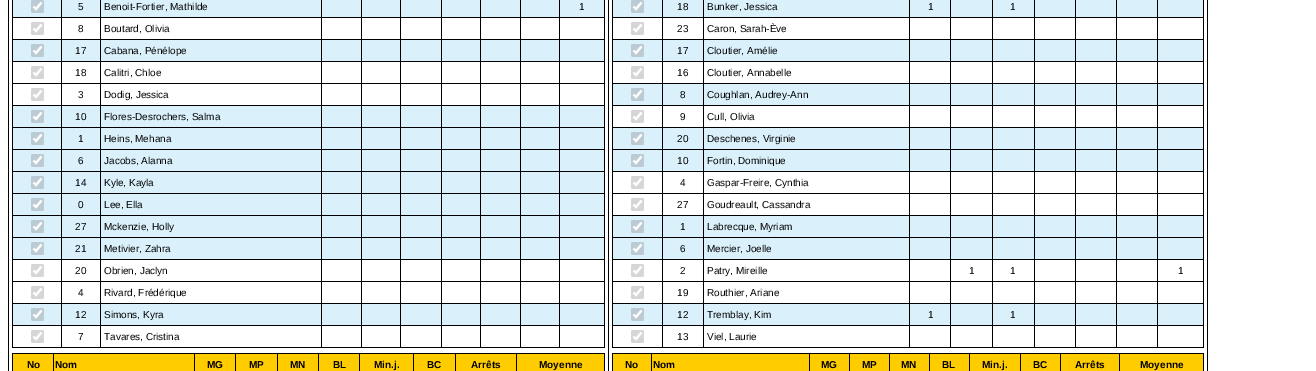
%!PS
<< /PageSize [1316 371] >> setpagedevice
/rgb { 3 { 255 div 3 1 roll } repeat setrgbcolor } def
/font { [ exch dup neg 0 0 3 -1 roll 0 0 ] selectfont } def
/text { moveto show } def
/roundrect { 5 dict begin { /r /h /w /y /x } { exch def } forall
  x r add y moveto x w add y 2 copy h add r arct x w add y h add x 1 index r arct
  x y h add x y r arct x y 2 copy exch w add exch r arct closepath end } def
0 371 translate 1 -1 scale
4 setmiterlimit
255 255 255 rgb
0 0 1316 371 rectfill
0 0 0 rgb
1207 0 1 371 rectfill
8 0 1 371 rectfill
604 0 1 348 rectfill
12 347 593 1 rectfill
12 0 1 348 rectfill
218 240 251 rgb
13 0 48 17 rectfill
188 203 211 rgb
31 0 13 13 2 roundrect fill
255 255 255 rgb
2.1 setlinewidth
33.5 6.5 moveto 2.5 2.5 rlineto 5.5 -6.5 rlineto stroke
218 240 251 rgb
62 0 38 17 rectfill
101 0 220 17 rectfill
322 0 39 17 rectfill
362 0 38 17 rectfill
401 0 40 17 rectfill
442 0 38 17 rectfill
481 0 39 17 rectfill
521 0 38 17 rectfill
560 0 44 17 rectfill
0 0 0 rgb
12 17 593 1 rectfill
214 214 214 rgb
31 22 13 13 2 roundrect fill
255 255 255 rgb
33.5 28.5 moveto 2.5 2.5 rlineto 5.5 -6.5 rlineto stroke
0 0 0 rgb
12 39 593 1 rectfill
218 240 251 rgb
13 40 48 21 rectfill
188 203 211 rgb
31 44 13 13 2 roundrect fill
255 255 255 rgb
33.5 50.5 moveto 2.5 2.5 rlineto 5.5 -6.5 rlineto stroke
218 240 251 rgb
62 40 38 21 rectfill
101 40 220 21 rectfill
322 40 39 21 rectfill
362 40 38 21 rectfill
401 40 40 21 rectfill
442 40 38 21 rectfill
481 40 39 21 rectfill
521 40 38 21 rectfill
560 40 44 21 rectfill
0 0 0 rgb
12 61 593 1 rectfill
214 214 214 rgb
31 66 13 13 2 roundrect fill
255 255 255 rgb
33.5 72.5 moveto 2.5 2.5 rlineto 5.5 -6.5 rlineto stroke
0 0 0 rgb
12 83 593 1 rectfill
214 214 214 rgb
31 88 13 13 2 roundrect fill
255 255 255 rgb
33.5 94.5 moveto 2.5 2.5 rlineto 5.5 -6.5 rlineto stroke
0 0 0 rgb
12 105 593 1 rectfill
218 240 251 rgb
13 106 48 21 rectfill
188 203 211 rgb
31 110 13 13 2 roundrect fill
255 255 255 rgb
33.5 116.5 moveto 2.5 2.5 rlineto 5.5 -6.5 rlineto stroke
218 240 251 rgb
62 106 38 21 rectfill
101 106 220 21 rectfill
322 106 39 21 rectfill
362 106 38 21 rectfill
401 106 40 21 rectfill
442 106 38 21 rectfill
481 106 39 21 rectfill
521 106 38 21 rectfill
560 106 44 21 rectfill
0 0 0 rgb
12 127 593 1 rectfill
218 240 251 rgb
13 128 48 21 rectfill
188 203 211 rgb
31 132 13 13 2 roundrect fill
255 255 255 rgb
33.5 138.5 moveto 2.5 2.5 rlineto 5.5 -6.5 rlineto stroke
218 240 251 rgb
62 128 38 21 rectfill
101 128 220 21 rectfill
322 128 39 21 rectfill
362 128 38 21 rectfill
401 128 40 21 rectfill
442 128 38 21 rectfill
481 128 39 21 rectfill
521 128 38 21 rectfill
560 128 44 21 rectfill
0 0 0 rgb
12 149 593 1 rectfill
218 240 251 rgb
13 150 48 21 rectfill
188 203 211 rgb
31 154 13 13 2 roundrect fill
255 255 255 rgb
33.5 160.5 moveto 2.5 2.5 rlineto 5.5 -6.5 rlineto stroke
218 240 251 rgb
62 150 38 21 rectfill
101 150 220 21 rectfill
322 150 39 21 rectfill
362 150 38 21 rectfill
401 150 40 21 rectfill
442 150 38 21 rectfill
481 150 39 21 rectfill
521 150 38 21 rectfill
560 150 44 21 rectfill
0 0 0 rgb
12 171 593 1 rectfill
218 240 251 rgb
13 172 48 21 rectfill
188 203 211 rgb
31 176 13 13 2 roundrect fill
255 255 255 rgb
33.5 182.5 moveto 2.5 2.5 rlineto 5.5 -6.5 rlineto stroke
218 240 251 rgb
62 172 38 21 rectfill
101 172 220 21 rectfill
322 172 39 21 rectfill
362 172 38 21 rectfill
401 172 40 21 rectfill
442 172 38 21 rectfill
481 172 39 21 rectfill
521 172 38 21 rectfill
560 172 44 21 rectfill
0 0 0 rgb
12 193 593 1 rectfill
218 240 251 rgb
13 194 48 21 rectfill
188 203 211 rgb
31 198 13 13 2 roundrect fill
255 255 255 rgb
33.5 204.5 moveto 2.5 2.5 rlineto 5.5 -6.5 rlineto stroke
218 240 251 rgb
62 194 38 21 rectfill
101 194 220 21 rectfill
322 194 39 21 rectfill
362 194 38 21 rectfill
401 194 40 21 rectfill
442 194 38 21 rectfill
481 194 39 21 rectfill
521 194 38 21 rectfill
560 194 44 21 rectfill
0 0 0 rgb
12 215 593 1 rectfill
218 240 251 rgb
13 216 48 21 rectfill
188 203 211 rgb
31 220 13 13 2 roundrect fill
255 255 255 rgb
33.5 226.5 moveto 2.5 2.5 rlineto 5.5 -6.5 rlineto stroke
218 240 251 rgb
62 216 38 21 rectfill
101 216 220 21 rectfill
322 216 39 21 rectfill
362 216 38 21 rectfill
401 216 40 21 rectfill
442 216 38 21 rectfill
481 216 39 21 rectfill
521 216 38 21 rectfill
560 216 44 21 rectfill
0 0 0 rgb
12 237 593 1 rectfill
218 240 251 rgb
13 238 48 21 rectfill
188 203 211 rgb
31 242 13 13 2 roundrect fill
255 255 255 rgb
33.5 248.5 moveto 2.5 2.5 rlineto 5.5 -6.5 rlineto stroke
218 240 251 rgb
62 238 38 21 rectfill
101 238 220 21 rectfill
322 238 39 21 rectfill
362 238 38 21 rectfill
401 238 40 21 rectfill
442 238 38 21 rectfill
481 238 39 21 rectfill
521 238 38 21 rectfill
560 238 44 21 rectfill
0 0 0 rgb
12 259 593 1 rectfill
214 214 214 rgb
31 264 13 13 2 roundrect fill
255 255 255 rgb
33.5 270.5 moveto 2.5 2.5 rlineto 5.5 -6.5 rlineto stroke
0 0 0 rgb
12 281 593 1 rectfill
214 214 214 rgb
31 286 13 13 2 roundrect fill
255 255 255 rgb
33.5 292.5 moveto 2.5 2.5 rlineto 5.5 -6.5 rlineto stroke
0 0 0 rgb
12 303 593 1 rectfill
218 240 251 rgb
13 304 48 21 rectfill
188 203 211 rgb
31 308 13 13 2 roundrect fill
255 255 255 rgb
33.5 314.5 moveto 2.5 2.5 rlineto 5.5 -6.5 rlineto stroke
218 240 251 rgb
62 304 38 21 rectfill
101 304 220 21 rectfill
322 304 39 21 rectfill
362 304 38 21 rectfill
401 304 40 21 rectfill
442 304 38 21 rectfill
481 304 39 21 rectfill
521 304 38 21 rectfill
560 304 44 21 rectfill
0 0 0 rgb
12 325 593 1 rectfill
214 214 214 rgb
31 330 13 13 2 roundrect fill
255 255 255 rgb
33.5 336.5 moveto 2.5 2.5 rlineto 5.5 -6.5 rlineto stroke
0 0 0 rgb
61 0 1 348 rectfill
100 0 1 348 rectfill
321 0 1 348 rectfill
361 0 1 348 rectfill
400 0 1 348 rectfill
441 0 1 348 rectfill
480 0 1 348 rectfill
520 0 1 348 rectfill
559 0 1 348 rectfill
12 353 593 1 rectfill
604 353 1 18 rectfill
12 353 1 18 rectfill
255 204 0 rgb
13 354 40 17 rectfill
0 0 0 rgb
53 353 1 18 rectfill
255 204 0 rgb
54 354 140 17 rectfill
195 354 40 17 rectfill
0 0 0 rgb
194 353 1 18 rectfill
255 204 0 rgb
236 354 41 17 rectfill
0 0 0 rgb
235 353 1 18 rectfill
255 204 0 rgb
278 354 40 17 rectfill
0 0 0 rgb
277 353 1 18 rectfill
255 204 0 rgb
319 354 40 17 rectfill
0 0 0 rgb
318 353 1 18 rectfill
255 204 0 rgb
360 354 53 17 rectfill
0 0 0 rgb
359 353 1 18 rectfill
255 204 0 rgb
414 354 41 17 rectfill
0 0 0 rgb
413 353 1 18 rectfill
255 204 0 rgb
456 354 60 17 rectfill
0 0 0 rgb
455 353 1 18 rectfill
255 204 0 rgb
517 354 87 17 rectfill
0 0 0 rgb
516 353 1 18 rectfill
608 0 1 371 rectfill
1203 0 1 348 rectfill
612 347 592 1 rectfill
612 0 1 348 rectfill
218 240 251 rgb
613 0 49 17 rectfill
188 203 211 rgb
631 0 13 13 2 roundrect fill
255 255 255 rgb
633.5 6.5 moveto 2.5 2.5 rlineto 5.5 -6.5 rlineto stroke
218 240 251 rgb
663 0 40 17 rectfill
704 0 205 17 rectfill
910 0 40 17 rectfill
951 0 41 17 rectfill
993 0 41 17 rectfill
1035 0 40 17 rectfill
1076 0 40 17 rectfill
1117 0 40 17 rectfill
1158 0 45 17 rectfill
0 0 0 rgb
612 17 592 1 rectfill
214 214 214 rgb
631 22 13 13 2 roundrect fill
255 255 255 rgb
633.5 28.5 moveto 2.5 2.5 rlineto 5.5 -6.5 rlineto stroke
0 0 0 rgb
612 39 592 1 rectfill
218 240 251 rgb
613 40 49 21 rectfill
188 203 211 rgb
631 44 13 13 2 roundrect fill
255 255 255 rgb
633.5 50.5 moveto 2.5 2.5 rlineto 5.5 -6.5 rlineto stroke
218 240 251 rgb
663 40 40 21 rectfill
704 40 205 21 rectfill
910 40 40 21 rectfill
951 40 41 21 rectfill
993 40 41 21 rectfill
1035 40 40 21 rectfill
1076 40 40 21 rectfill
1117 40 40 21 rectfill
1158 40 45 21 rectfill
0 0 0 rgb
612 61 592 1 rectfill
214 214 214 rgb
631 66 13 13 2 roundrect fill
255 255 255 rgb
633.5 72.5 moveto 2.5 2.5 rlineto 5.5 -6.5 rlineto stroke
0 0 0 rgb
612 83 592 1 rectfill
218 240 251 rgb
613 84 49 21 rectfill
188 203 211 rgb
631 88 13 13 2 roundrect fill
255 255 255 rgb
633.5 94.5 moveto 2.5 2.5 rlineto 5.5 -6.5 rlineto stroke
218 240 251 rgb
663 84 40 21 rectfill
704 84 205 21 rectfill
910 84 40 21 rectfill
951 84 41 21 rectfill
993 84 41 21 rectfill
1035 84 40 21 rectfill
1076 84 40 21 rectfill
1117 84 40 21 rectfill
1158 84 45 21 rectfill
0 0 0 rgb
612 105 592 1 rectfill
214 214 214 rgb
631 110 13 13 2 roundrect fill
255 255 255 rgb
633.5 116.5 moveto 2.5 2.5 rlineto 5.5 -6.5 rlineto stroke
0 0 0 rgb
612 127 592 1 rectfill
218 240 251 rgb
613 128 49 21 rectfill
188 203 211 rgb
631 132 13 13 2 roundrect fill
255 255 255 rgb
633.5 138.5 moveto 2.5 2.5 rlineto 5.5 -6.5 rlineto stroke
218 240 251 rgb
663 128 40 21 rectfill
704 128 205 21 rectfill
910 128 40 21 rectfill
951 128 41 21 rectfill
993 128 41 21 rectfill
1035 128 40 21 rectfill
1076 128 40 21 rectfill
1117 128 40 21 rectfill
1158 128 45 21 rectfill
0 0 0 rgb
612 149 592 1 rectfill
218 240 251 rgb
613 150 49 21 rectfill
188 203 211 rgb
631 154 13 13 2 roundrect fill
255 255 255 rgb
633.5 160.5 moveto 2.5 2.5 rlineto 5.5 -6.5 rlineto stroke
218 240 251 rgb
663 150 40 21 rectfill
704 150 205 21 rectfill
910 150 40 21 rectfill
951 150 41 21 rectfill
993 150 41 21 rectfill
1035 150 40 21 rectfill
1076 150 40 21 rectfill
1117 150 40 21 rectfill
1158 150 45 21 rectfill
0 0 0 rgb
612 171 592 1 rectfill
214 214 214 rgb
631 176 13 13 2 roundrect fill
255 255 255 rgb
633.5 182.5 moveto 2.5 2.5 rlineto 5.5 -6.5 rlineto stroke
0 0 0 rgb
612 193 592 1 rectfill
214 214 214 rgb
631 198 13 13 2 roundrect fill
255 255 255 rgb
633.5 204.5 moveto 2.5 2.5 rlineto 5.5 -6.5 rlineto stroke
0 0 0 rgb
612 215 592 1 rectfill
218 240 251 rgb
613 216 49 21 rectfill
188 203 211 rgb
631 220 13 13 2 roundrect fill
255 255 255 rgb
633.5 226.5 moveto 2.5 2.5 rlineto 5.5 -6.5 rlineto stroke
218 240 251 rgb
663 216 40 21 rectfill
704 216 205 21 rectfill
910 216 40 21 rectfill
951 216 41 21 rectfill
993 216 41 21 rectfill
1035 216 40 21 rectfill
1076 216 40 21 rectfill
1117 216 40 21 rectfill
1158 216 45 21 rectfill
0 0 0 rgb
612 237 592 1 rectfill
218 240 251 rgb
613 238 49 21 rectfill
188 203 211 rgb
631 242 13 13 2 roundrect fill
255 255 255 rgb
633.5 248.5 moveto 2.5 2.5 rlineto 5.5 -6.5 rlineto stroke
218 240 251 rgb
663 238 40 21 rectfill
704 238 205 21 rectfill
910 238 40 21 rectfill
951 238 41 21 rectfill
993 238 41 21 rectfill
1035 238 40 21 rectfill
1076 238 40 21 rectfill
1117 238 40 21 rectfill
1158 238 45 21 rectfill
0 0 0 rgb
612 259 592 1 rectfill
214 214 214 rgb
631 264 13 13 2 roundrect fill
255 255 255 rgb
633.5 270.5 moveto 2.5 2.5 rlineto 5.5 -6.5 rlineto stroke
0 0 0 rgb
612 281 592 1 rectfill
214 214 214 rgb
631 286 13 13 2 roundrect fill
255 255 255 rgb
633.5 292.5 moveto 2.5 2.5 rlineto 5.5 -6.5 rlineto stroke
0 0 0 rgb
612 303 592 1 rectfill
218 240 251 rgb
613 304 49 21 rectfill
188 203 211 rgb
631 308 13 13 2 roundrect fill
255 255 255 rgb
633.5 314.5 moveto 2.5 2.5 rlineto 5.5 -6.5 rlineto stroke
218 240 251 rgb
663 304 40 21 rectfill
704 304 205 21 rectfill
910 304 40 21 rectfill
951 304 41 21 rectfill
993 304 41 21 rectfill
1035 304 40 21 rectfill
1076 304 40 21 rectfill
1117 304 40 21 rectfill
1158 304 45 21 rectfill
0 0 0 rgb
612 325 592 1 rectfill
214 214 214 rgb
631 330 13 13 2 roundrect fill
255 255 255 rgb
633.5 336.5 moveto 2.5 2.5 rlineto 5.5 -6.5 rlineto stroke
0 0 0 rgb
662 0 1 348 rectfill
703 0 1 348 rectfill
909 0 1 348 rectfill
950 0 1 348 rectfill
992 0 1 348 rectfill
1034 0 1 348 rectfill
1075 0 1 348 rectfill
1116 0 1 348 rectfill
1157 0 1 348 rectfill
612 353 592 1 rectfill
1203 353 1 18 rectfill
612 353 1 18 rectfill
255 204 0 rgb
613 354 38 17 rectfill
0 0 0 rgb
651 353 1 18 rectfill
255 204 0 rgb
652 354 157 17 rectfill
810 354 39 17 rectfill
0 0 0 rgb
809 353 1 18 rectfill
255 204 0 rgb
850 354 39 17 rectfill
0 0 0 rgb
849 353 1 18 rectfill
255 204 0 rgb
890 354 39 17 rectfill
0 0 0 rgb
889 353 1 18 rectfill
255 204 0 rgb
930 354 39 17 rectfill
0 0 0 rgb
929 353 1 18 rectfill
255 204 0 rgb
970 354 50 17 rectfill
0 0 0 rgb
969 353 1 18 rectfill
255 204 0 rgb
1021 354 39 17 rectfill
0 0 0 rgb
1020 353 1 18 rectfill
255 204 0 rgb
1061 354 58 17 rectfill
0 0 0 rgb
1060 353 1 18 rectfill
255 204 0 rgb
1120 354 83 17 rectfill
0 0 0 rgb
1119 353 1 18 rectfill
/LiberationSans-Regular 10 font
(5) 78 10 text
(Benoit-Fortier, Mathilde) 104 10 text
(1) 579 10 text
(8) 78 32 text
(Boutard, Olivia) 104 32 text
(17) 75 54 text
(Cabana, Pénélope) 104 54 text
(18) 75 76 text
(Calitri, Chloe) 104 76 text
(3) 78 98 text
(Dodig, Jessica) 104 98 text
(10) 75 120 text
(Flores-Desrochers, Salma) 104 120 text
(1) 78 142 text
(Heins, Mehana) 104 142 text
(6) 78 164 text
(Jacobs, Alanna) 104 164 text
(14) 75 186 text
(Kyle, Kayla) 104 186 text
(0) 78 208 text
(Lee, Ella) 104 208 text
(27) 75 230 text
(Mckenzie, Holly) 104 230 text
(21) 75 252 text
(Metivier, Zahra) 104 252 text
(20) 75 274 text
(Obrien, Jaclyn) 104 274 text
(4) 78 296 text
(Rivard, Frédérique) 104 296 text
(12) 75 318 text
(Simons, Kyra) 104 318 text
(7) 78 340 text
(Tavares, Cristina) 104 340 text
/LiberationSans-Bold 10 font
(No) 27 368 text
(Nom) 55 368 text
(MG) 207 368 text
(MP) 249 368 text
(MN) 290 368 text
(BL) 333 368 text
(Min.j.) 374 368 text
(BC) 427 368 text
(Arrêts) 471 368 text
(Moyenne) 539 368 text
/LiberationSans-Regular 10 font
(18) 677 10 text
(Bunker, Jessica) 707 10 text
(1) 928 10 text
(1) 1010 10 text
(23) 677 32 text
(Caron, Sarah-Ève) 707 32 text
(17) 677 54 text
(Cloutier, Amélie) 707 54 text
(16) 677 76 text
(Cloutier, Annabelle) 707 76 text
(8) 680 98 text
(Coughlan, Audrey-Ann) 707 98 text
(9) 680 120 text
(Cull, Olivia) 707 120 text
(20) 677 142 text
(Deschenes, Virginie) 707 142 text
(10) 677 164 text
(Fortin, Dominique) 707 164 text
(4) 680 186 text
(Gaspar-Freire, Cynthia) 707 186 text
(27) 677 208 text
(Goudreault, Cassandra) 707 208 text
(1) 680 230 text
(Labrecque, Myriam) 707 230 text
(6) 680 252 text
(Mercier, Joelle) 707 252 text
(2) 680 274 text
(Patry, Mireille) 707 274 text
(1) 969 274 text
(1) 1010 274 text
(1) 1178 274 text
(19) 677 296 text
(Routhier, Ariane) 707 296 text
(12) 677 318 text
(Tremblay, Kim) 707 318 text
(1) 928 318 text
(1) 1010 318 text
(13) 677 340 text
(Viel, Laurie) 707 340 text
/LiberationSans-Bold 10 font
(No) 625 368 text
(Nom) 653 368 text
(MG) 821 368 text
(MP) 862 368 text
(MN) 901 368 text
(BL) 942 368 text
(Min.j.) 982 368 text
(BC) 1033 368 text
(Arrêts) 1075 368 text
(Moyenne) 1140 368 text
showpage
